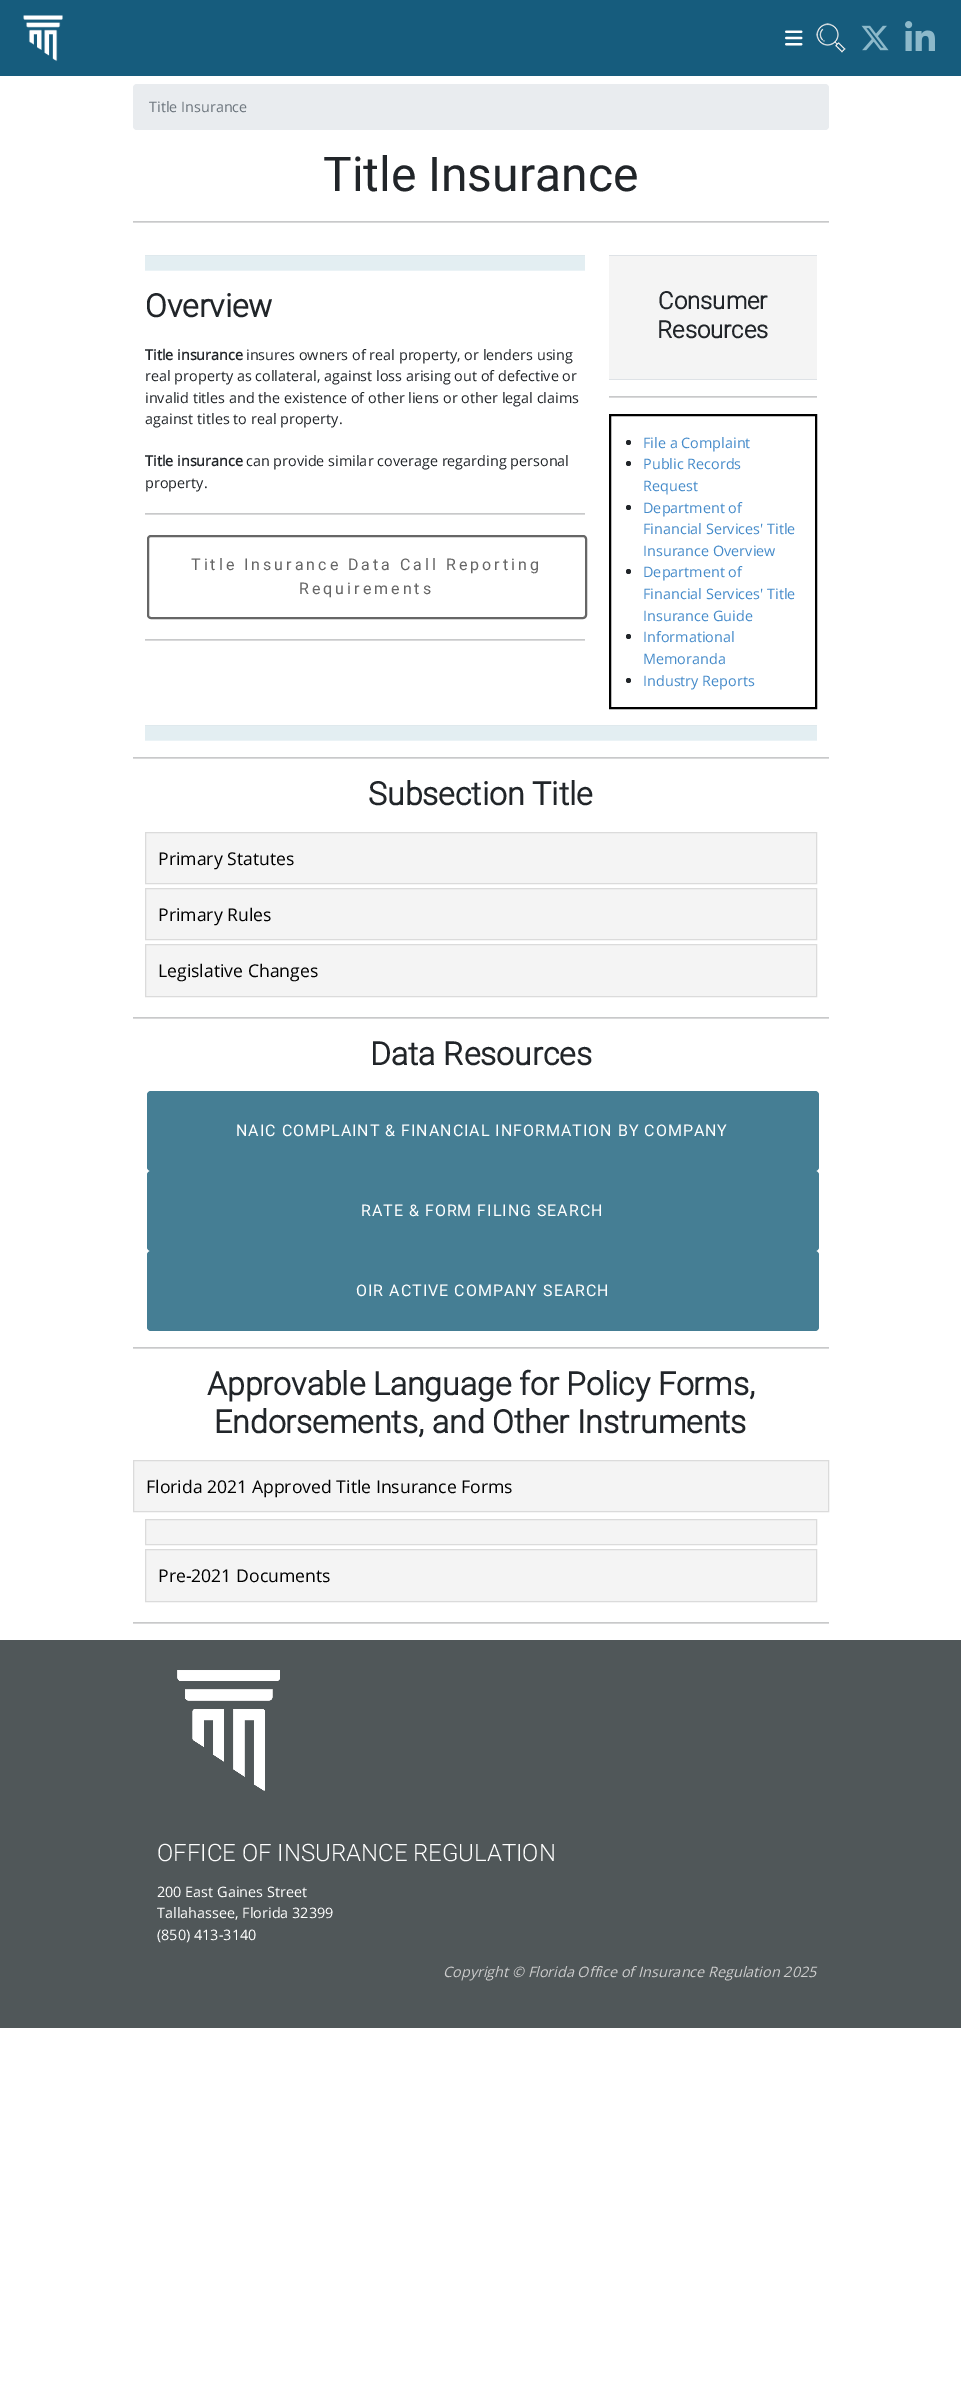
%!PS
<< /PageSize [961 2381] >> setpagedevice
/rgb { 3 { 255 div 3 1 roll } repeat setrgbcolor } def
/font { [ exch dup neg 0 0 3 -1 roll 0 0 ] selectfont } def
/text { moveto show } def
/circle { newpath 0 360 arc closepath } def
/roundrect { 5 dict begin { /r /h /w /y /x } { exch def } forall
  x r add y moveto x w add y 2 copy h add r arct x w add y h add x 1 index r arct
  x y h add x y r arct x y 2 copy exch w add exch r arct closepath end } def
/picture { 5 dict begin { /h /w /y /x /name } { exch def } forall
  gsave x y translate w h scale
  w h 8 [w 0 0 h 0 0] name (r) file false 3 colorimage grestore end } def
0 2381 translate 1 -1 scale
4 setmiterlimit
255 255 255 rgb
0 0 961 2381 rectfill
22 92 125 rgb
0 0 961 76 rectfill
(img_01.rgb) 23 15 40 47 picture
(img_02.rgb) 785 30 18 16 picture
(img_03.rgb) 816 23 30 30 picture
(img_04.rgb) 861 25 28 26 picture
(img_05.rgb) 905 21 30 30 picture
233 236 239 rgb
133 84 696 46 4 roundrect fill
200 201 202 rgb
133 221 696 1 rectfill
217 217 218 rgb
133 222 696 1 rectfill
227 238 242 rgb
145 256 440 14 rectfill
223 233 237 rgb
145 255 440 1 rectfill
235 243 246 rgb
145 270 440 1 rectfill
200 201 202 rgb
145 513 440 1 rectfill
217 217 218 rgb
145 514 440 1 rectfill
102 102 102 rgb
2 setlinewidth
148 536 438 82 3 roundrect stroke
200 201 202 rgb
145 639 440 1 rectfill
217 217 218 rgb
145 640 440 1 rectfill
244 244 244 rgb
609 256 208 123 rectfill
222 226 230 rgb
609 255 208 1 rectfill
609 379 208 1 rectfill
200 201 202 rgb
609 396 208 1 rectfill
217 217 218 rgb
609 397 208 1 rectfill
0 0 0 rgb
610 415 206 293 rectstroke
33 37 41 rgb
628.5 442.5 2.5 circle fill
628.5 463.5 2.5 circle fill
628.5 507.5 2.5 circle fill
628.5 571.5 2.5 circle fill
628.5 636.5 2.5 circle fill
628.5 680.5 2.5 circle fill
227 238 242 rgb
145 726 672 14 rectfill
223 233 237 rgb
145 725 672 1 rectfill
235 243 246 rgb
145 740 672 1 rectfill
200 201 202 rgb
133 757 696 1 rectfill
217 217 218 rgb
133 758 696 1 rectfill
244 244 244 rgb
145.5 832.5 moveto 671 0 rlineto 0 51 rlineto -671 0 rlineto closepath gsave fill grestore
219 219 219 rgb
1 setlinewidth
stroke
244 244 244 rgb
145.5 888.5 moveto 671 0 rlineto 0 51 rlineto -671 0 rlineto closepath gsave fill grestore
219 219 219 rgb
stroke
244 244 244 rgb
145.5 944.5 moveto 671 0 rlineto 0 52 rlineto -671 0 rlineto closepath gsave fill grestore
219 219 219 rgb
stroke
200 201 202 rgb
133 1017 696 1 rectfill
217 217 218 rgb
133 1018 696 1 rectfill
69 126 148 rgb
147 1091 672 80 4 roundrect fill
147 1171 672 80 4 roundrect fill
147 1251 672 80 4 roundrect fill
200 201 202 rgb
133 1347 696 1 rectfill
217 217 218 rgb
133 1348 696 1 rectfill
244 244 244 rgb
133.5 1460.5 moveto 695 0 rlineto 0 51 rlineto -695 0 rlineto closepath gsave fill grestore
219 219 219 rgb
stroke
244 244 244 rgb
145.5 1519.5 moveto 671 0 rlineto 0 25 rlineto -671 0 rlineto closepath gsave fill grestore
219 219 219 rgb
stroke
244 244 244 rgb
145.5 1549.5 moveto 671 0 rlineto 0 52 rlineto -671 0 rlineto closepath gsave fill grestore
219 219 219 rgb
stroke
200 201 202 rgb
133 1622 696 1 rectfill
217 217 218 rgb
133 1623 696 1 rectfill
80 87 89 rgb
0 1640 961 388 rectfill
(img_06.rgb) 177 1670 103 121 picture
/OpenSans-Regular 14.4 font
108 117 125 rgb
(Title Insurance) 149 112 text
/Roboto-Regular 48 font
33 37 41 rgb
(Title Insurance) 323 191 text
/Roboto-Bold 32 font
(Overview) 145 317 text
/OpenSans-Bold 14.4 font
(Title insurance) 145 360 text
/OpenSans-Regular 14.4 font
(insures owners of real property, or lenders using) 246 360 text
(real property as collateral, against loss arising out of defective or) 145 381 text
(invalid titles and the existence of other liens or other legal claims) 145 403 text
(against titles to real property.) 145 424 text
/OpenSans-Bold 14.4 font
(Title insurance) 145 466 text
/OpenSans-Regular 14.4 font
(can provide similar coverage regarding personal) 246 466 text
(property.) 145 488 text
/Roboto-Regular 16 font
102 102 102 rgb
191 570 moveto 3 0 (Title Insurance Data Call Reporting) ashow
299 594 moveto 3 0 (Requirements) ashow
/Roboto-Bold 24 font
33 37 41 rgb
(Consumer) 658 309 text
(Resources) 657 338 text
/OpenSans-Regular 14.4 font
69 139 202 rgb
(File a Complaint) 643 448 text
(Public Records) 643 469 text
(Request) 643 491 text
(Department of) 643 513 text
(Financial Services' Title) 643 534 text
(Insurance Overview) 643 556 text
(Department of) 643 577 text
(Financial Services' Title) 643 599 text
(Insurance Guide) 643 621 text
(Informational) 643 642 text
(Memoranda) 643 664 text
(Industry Reports) 643 686 text
/Roboto-Bold 32 font
33 37 41 rgb
(Subsection Title) 368 805 text
/OpenSans-Regular 17.6 font
0 0 0 rgb
(Primary Statutes) 158 865 text
(Primary Rules) 158 921 text
(Legislative Changes) 158 977 text
/Roboto-Bold 32 font
33 37 41 rgb
(Data Resources) 370 1065 text
/Roboto-Regular 16 font
255 255 255 rgb
236 1136 moveto 1 0 (NAIC COMPLAINT & FINANCIAL INFORMATION BY COMPANY) ashow
361 1216 moveto 1 0 (RATE & FORM FILING SEARCH) ashow
356 1296 moveto 1 0 (OIR ACTIVE COMPANY SEARCH) ashow
/Roboto-Bold 32 font
33 37 41 rgb
(Approvable Language for Policy Forms,) 207 1395 text
(Endorsements, and Other Instruments) 214 1433 text
/OpenSans-Regular 17.6 font
0 0 0 rgb
(Florida 2021 Approved Title Insurance Forms) 146 1493 text
(Pre-2021 Documents) 158 1582 text
/Roboto-Light 24 font
255 255 255 rgb
(OFFICE OF INSURANCE REGULATION) 157 1861 text
/OpenSans-Regular 14.4 font
(200 East Gaines Street) 157 1897 text
(Tallahassee, Florida 32399) 157 1918 text
(\(850\) 413-3140) 157 1940 text
/OpenSans-Italic 14.4 font
204 204 204 rgb
(Copyright © Florida Office of Insurance Regulation 2025) 443 1977 text
showpage
